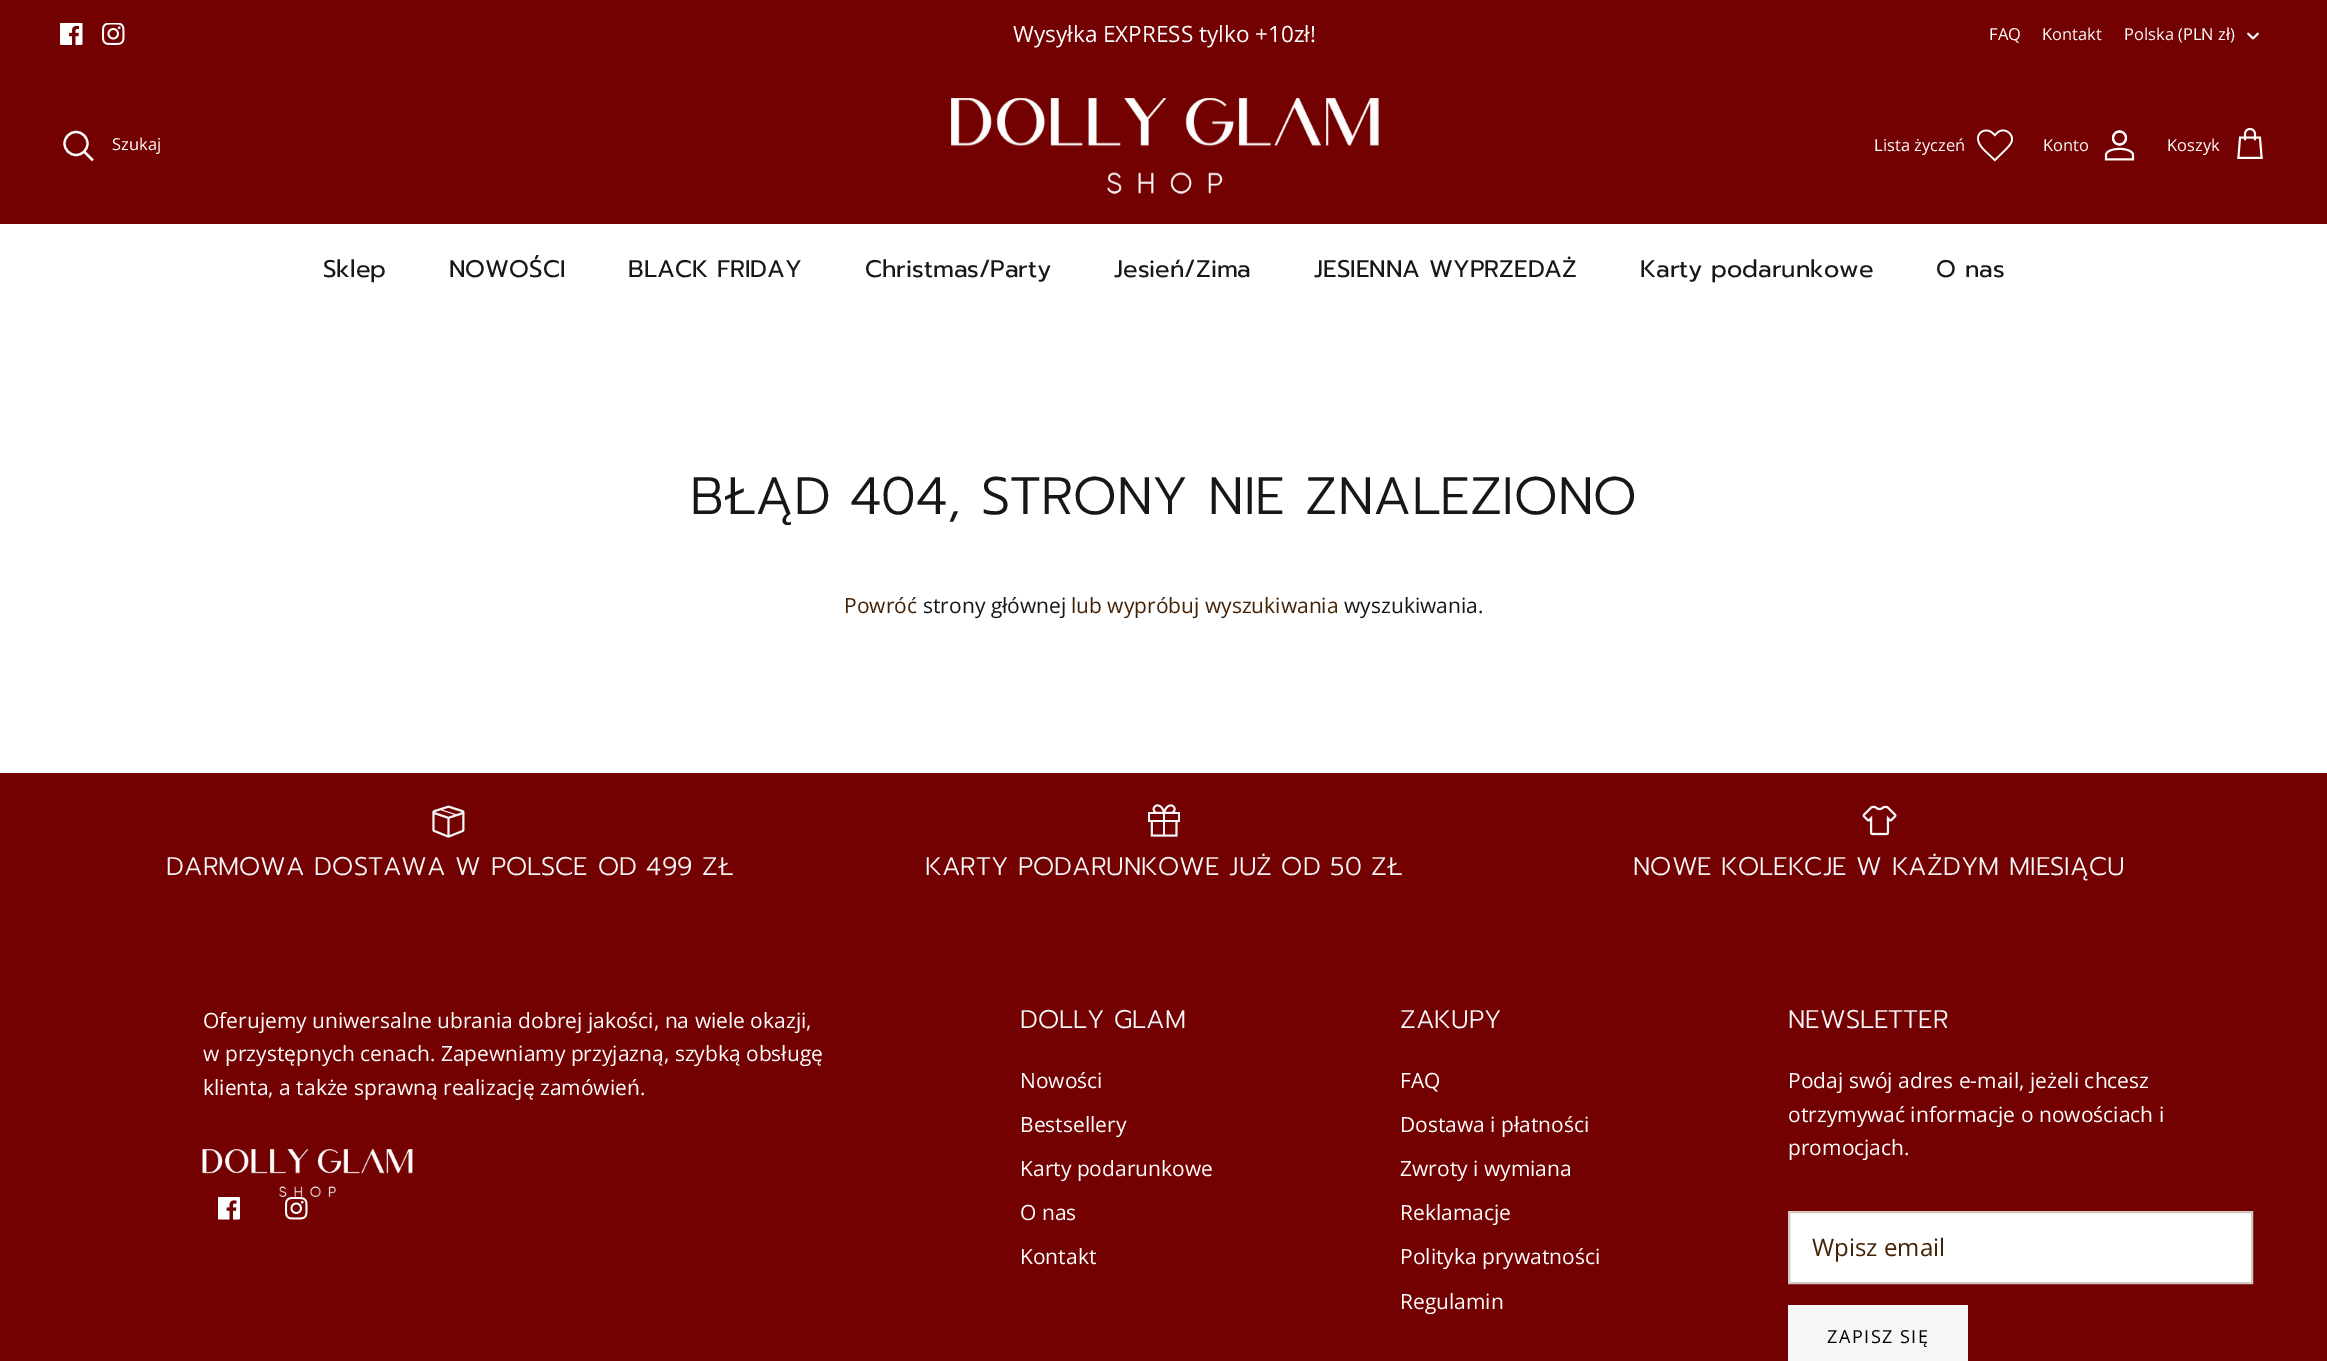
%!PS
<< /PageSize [2327 1361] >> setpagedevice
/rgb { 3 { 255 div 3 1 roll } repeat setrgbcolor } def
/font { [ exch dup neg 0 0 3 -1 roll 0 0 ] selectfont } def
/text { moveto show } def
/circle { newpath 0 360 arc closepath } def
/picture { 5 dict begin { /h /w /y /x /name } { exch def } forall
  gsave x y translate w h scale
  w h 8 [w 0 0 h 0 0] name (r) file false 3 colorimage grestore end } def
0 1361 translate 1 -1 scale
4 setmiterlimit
255 255 255 rgb
0 0 2327 1361 rectfill
116 1 1 rgb
0 0 2327 224 rectfill
(img_01.rgb) 60 23 23 22 picture
(img_02.rgb) 102 23 23 22 picture
255 255 255 rgb
1.8 setlinewidth
1 setlinecap
1 setlinejoin
2248 33.5 moveto 5 5 rlineto 5 -5 rlineto stroke
2.2 setlinewidth
0 setlinecap
0 setlinejoin
76 143.5 11.5 circle stroke
2 setlinecap
85.5 153 moveto 6.5 6.5 rlineto stroke
(img_03.rgb) 951 98 428 96 picture
(img_04.rgb) 1977 129 36 33 picture
(img_05.rgb) 2104 130 31 31 picture
(img_06.rgb) 2237 127 26 32 picture
116 1 1 rgb
0 773 2327 588 rectfill
(img_07.rgb) 432 805 33 33 picture
(img_08.rgb) 1148 804 32 33 picture
(img_09.rgb) 1862 805 35 31 picture
(img_10.rgb) 202 1149 211 48 picture
(img_11.rgb) 218 1197 22 23 picture
(img_12.rgb) 285 1197 23 23 picture
255 255 255 rgb
1789 1212 moveto 463 0 rlineto 0 71 rlineto -463 0 rlineto closepath gsave fill grestore
208 200 193 rgb
2 setlinewidth
0 setlinecap
stroke
244 246 248 rgb
1788 1305 180 56 rectfill
/OpenSans-Regular 22.5 font
255 255 255 rgb
(Wysyłka EXPRESS tylko +10zł!) 1013 42 text
/OpenSans-Regular 16.5 font
(FAQ) 1989 40 text
(Kontakt) 2042 40 text
(Polska \(PLN zł\)) 2124 40 text
(Szukaj) 112 150 text
(Lista życzeń) 1874 151 text
(Konto) 2043 151 text
(Koszyk) 2167 151 text
/Prompt-Regular 24 font
23 23 23 rgb
(Sklep) 323 277 text
(NOWOŚCI) 449 277 text
(BLACK FRIDAY) 628 277 text
(Christmas/Party) 865 277 text
(Jesień/Zima) 1114 277 text
(JESIENNA WYPRZEDAŻ) 1314 277 text
(Karty podarunkowe) 1640 277 text
(O nas) 1936 277 text
/Prompt-Light 52.5 font
(BŁĄD 404, STRONY NIE ZNALEZIONO) 690 514 text
/OpenSans-Regular 21 font
68 34 6 rgb
(Powróć) 844 613 text
23 23 23 rgb
(strony głównej) 923 613 text
68 34 6 rgb
(lub wypróbuj wyszukiwania) 1071 613 text
23 23 23 rgb
(wyszukiwania.) 1344 613 text
/Prompt-Light 25.5 font
244 246 248 rgb
(DARMOWA DOSTAWA W POLSCE OD 499 ZŁ) 166 875 text
(KARTY PODARUNKOWE JUŻ OD 50 ZŁ) 925 875 text
(NOWE KOLEKCJE W KAŻDYM MIESIĄCU) 1633 875 text
/OpenSans-Regular 21 font
255 255 255 rgb
(Oferujemy uniwersalne ubrania dobrej jakości, na wiele okazji,) 203 1028 text
(w przystępnych cenach. Zapewniamy przyjazną, szybką obsługę) 203 1061 text
(klienta, a także sprawną realizację zamówień.) 203 1095 text
/Prompt-Light 25.5 font
244 246 248 rgb
(DOLLY GLAM) 1020 1028 text
/OpenSans-Regular 21 font
255 255 255 rgb
(Nowości) 1020 1088 text
(Bestsellery) 1020 1132 text
(Karty podarunkowe) 1020 1176 text
(O nas) 1020 1220 text
(Kontakt) 1020 1264 text
/Prompt-Light 25.5 font
244 246 248 rgb
(ZAKUPY) 1400 1028 text
/OpenSans-Regular 21 font
255 255 255 rgb
(FAQ) 1400 1088 text
(Dostawa i płatności) 1400 1132 text
(Zwroty i wymiana) 1400 1176 text
(Reklamacje) 1400 1220 text
(Polityka prywatności) 1400 1264 text
(Regulamin) 1400 1309 text
/Prompt-Light 25.5 font
244 246 248 rgb
(NEWSLETTER) 1788 1028 text
/OpenSans-Regular 21 font
255 255 255 rgb
(Podaj swój adres e-mail, jeżeli chcesz) 1788 1088 text
(otrzymywać informacje o nowościach i) 1788 1122 text
(promocjach.) 1788 1155 text
/OpenSans-Regular 24 font
68 34 6 rgb
(Wpisz email) 1812 1256 text
/OpenSans-Regular 18 font
0 0 0 rgb
1827 1343 moveto 1.5 0 (ZAPISZ SIĘ) ashow
showpage
